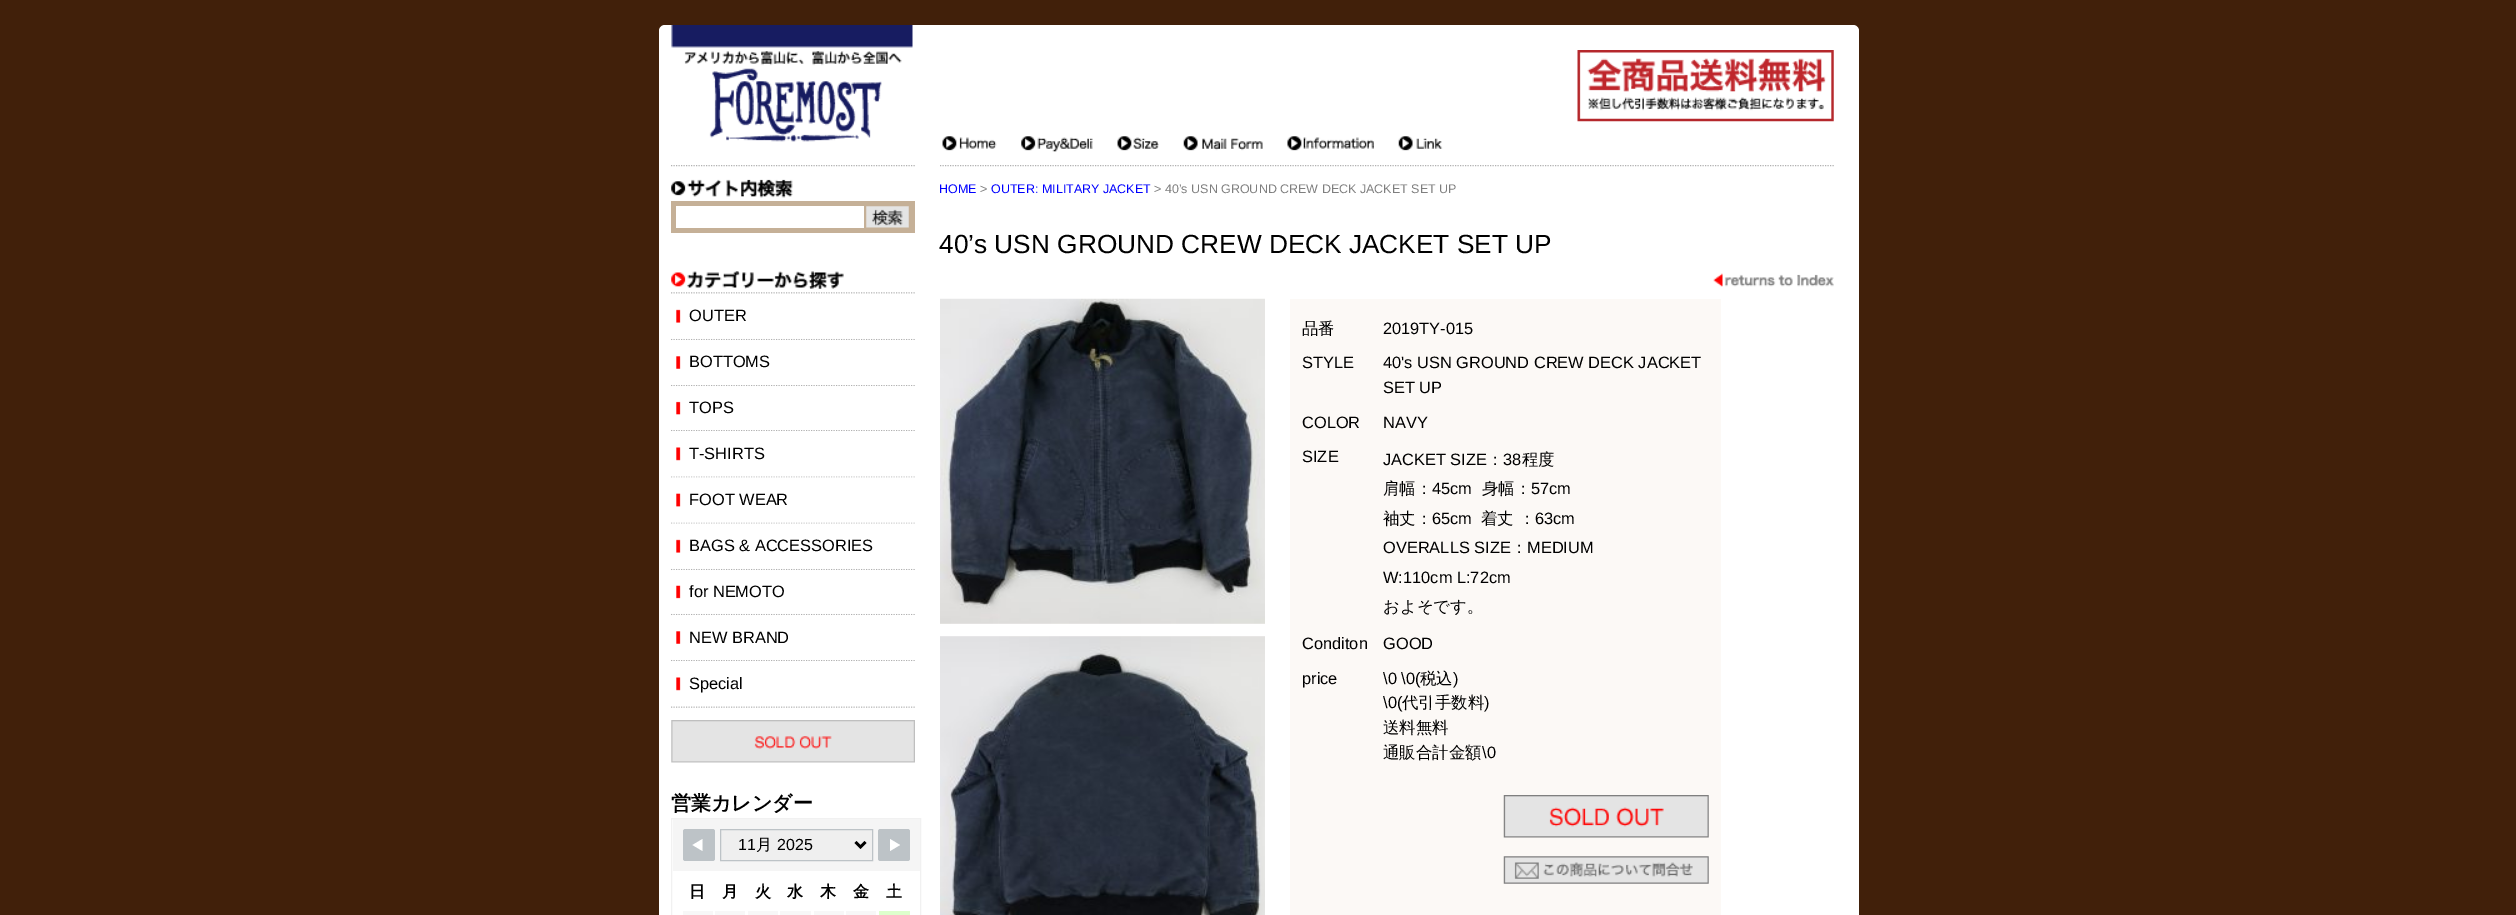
%!PS
<< /PageSize [2516 915] >> setpagedevice
/rgb { 3 { 255 div 3 1 roll } repeat setrgbcolor } def
/font { [ exch dup neg 0 0 3 -1 roll 0 0 ] selectfont } def
/text { moveto show } def
/roundrect { 5 dict begin { /r /h /w /y /x } { exch def } forall
  x r add y moveto x w add y 2 copy h add r arct x w add y h add x 1 index r arct
  x y h add x y r arct x y 2 copy exch w add exch r arct closepath end } def
/picture { 5 dict begin { /h /w /y /x /name } { exch def } forall
  gsave x y translate w h scale
  w h 8 [w 0 0 h 0 0] name (r) file false 3 colorimage grestore end } def
0 915 translate 1 -1 scale
4 setmiterlimit
65 32 10 rgb
0 0 2516 915 rectfill
255 255 255 rgb
659 25 1200 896 6 roundrect fill
(img_01.rgb) 671 25 242 117 picture
(img_02.rgb) 1577 50 257 72 picture
(img_03.rgb) 942 136 55 15 picture
(img_04.rgb) 1021 136 72 16 picture
(img_05.rgb) 1117 136 42 15 picture
(img_06.rgb) 1183 136 80 15 picture
(img_07.rgb) 1287 136 87 15 picture
(img_08.rgb) 1398 136 45 15 picture
gsave
659 165 1200 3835 rectclip
177 177 177 rgb
1.2 setlinewidth
[1.25 1.25] 0 setdash
671 165.5 moveto 244 0 rlineto stroke
grestore
(img_09.rgb) 671 179 122 19 picture
197 176 151 rgb
671 201 244 32 rectfill
255 255 255 rgb
676 206 188 22 rectfill
(img_10.rgb) 866 206 43 22 picture
(img_11.rgb) 671 271 173 18 picture
177 177 177 rgb
1.2 setlinewidth
[1.25 1.25] 0 setdash
671 293 moveto 244 0 rlineto stroke
671 339.5 moveto 244 0 rlineto stroke
(img_12.rgb) 671 293 244 46 picture
671 385.5 moveto 244 0 rlineto stroke
(img_13.rgb) 671 340 244 45 picture
671 430.5 moveto 244 0 rlineto stroke
(img_14.rgb) 671 386 244 44 picture
671 477 moveto 244 0 rlineto stroke
(img_15.rgb) 671 431 244 46 picture
671 523 moveto 244 0 rlineto stroke
(img_16.rgb) 671 477 244 46 picture
671 569.5 moveto 244 0 rlineto stroke
(img_12.rgb) 671 523 244 46 picture
671 614.5 moveto 244 0 rlineto stroke
(img_17.rgb) 671 570 244 44 picture
671 660.5 moveto 244 0 rlineto stroke
(img_13.rgb) 671 615 244 45 picture
671 707 moveto 244 0 rlineto stroke
(img_15.rgb) 671 661 244 46 picture
(img_18.rgb) 671 720 244 43 picture
241 241 241 rgb
1 setlinewidth
[] 0 setdash
671.5 818.5 249 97 rectstroke
245 245 245 rgb
673 819 247 52 rectfill
189 195 199 rgb
683 829 32 32 2.5 roundrect fill
255 255 255 rgb
702.5 839 moveto 0 12 rlineto -10 -6 rlineto closepath fill
239 239 239 rgb
720.5 829.5 moveto 152 0 rlineto 0 31 rlineto -152 0 rlineto closepath gsave fill grestore
189 195 199 rgb
stroke
0 0 0 rgb
2.5 setlinewidth
855.5 842 moveto 5 5 rlineto 5 -5 rlineto stroke
189 195 199 rgb
878 829 32 32 2.5 roundrect fill
255 255 255 rgb
890 851 moveto 0 -12 rlineto 10 6 rlineto closepath fill
247 247 247 rgb
683 911 30 4 rectfill
715 911 30 4 rectfill
748 911 30 4 rectfill
780 911 31 4 rectfill
814 911 30 4 rectfill
846 911 30 4 rectfill
221 255 204 rgb
879 911 31 4 rectfill
gsave
659 165 1200 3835 rectclip
177 177 177 rgb
1.2 setlinewidth
[1.25 1.25] 0 setdash
940 165.5 moveto 894 0 rlineto stroke
grestore
(img_19.rgb) 1713 273 121 14 picture
(img_20.rgb) 940 298 325 326 picture
(img_21.rgb) 940 636 325 279 picture
252 249 246 rgb
1290 299 431 616 rectfill
(img_22.rgb) 1503 795 206 43 picture
(img_23.rgb) 1503 856 206 28 picture
/LiberationSans-Regular 16.4 font
0 0 0 rgb
(OUTER) 689 321 text
(BOTTOMS) 689 367 text
(TOPS) 689 413 text
(T-SHIRTS) 689 459 text
(FOOT WEAR) 689 505 text
(BAGS & ACCESSORIES) 689 551 text
(for NEMOTO) 689 597 text
(NEW BRAND) 689 643 text
(Special) 689 689 text
/WenQuanYiZenHei-Bold 20 font
(営業カレンダー) 671 810 text
/LiberationSans-Regular 16 font
(11) 738 850 text
/WenQuanYiZenHei-Medium 16 font
(月) 756 850 text
/LiberationSans-Regular 16 font
(2025) 777 850 text
/WenQuanYiZenHei-Bold 16 font
(日) 689 897 text
(月) 722 897 text
(火) 755 897 text
(水) 787 897 text
(木) 820 897 text
(金) 853 897 text
(土) 886 897 text
/LiberationSans-Regular 12.5 font
0 0 255 rgb
(HOME) 939 193 text
127 127 127 rgb
(>) 980 193 text
0 0 255 rgb
(OUTER: MILITARY JACKET) 991 193 text
127 127 127 rgb
(> 40’s USN GROUND CREW DECK JACKET SET UP) 1154 193 text
/LiberationSans-Regular 26.25 font
0 0 0 rgb
(40’s USN GROUND CREW DECK JACKET SET UP) 939 253 text
/WenQuanYiZenHei-Medium 16.4 font
(品番) 1302 334 text
/LiberationSans-Regular 16.4 font
(2019TY-015) 1383 334 text
(STYLE) 1302 368 text
(40's USN GROUND CREW DECK JACKET) 1383 368 text
(SET UP) 1383 393 text
(COLOR) 1302 428 text
(NAVY) 1383 428 text
(SIZE) 1302 462 text
(JACKET SIZE) 1383 465 text
/WenQuanYiZenHei-Medium 16.4 font
(：) 1487 465 text
/LiberationSans-Regular 16.4 font
(38) 1503 465 text
/WenQuanYiZenHei-Medium 16.4 font
(程度) 1522 465 text
(肩幅：) 1383 494 text
/LiberationSans-Regular 16.4 font
(45cm) 1432 494 text
/WenQuanYiZenHei-Medium 16.4 font
(身幅：) 1482 494 text
/LiberationSans-Regular 16.4 font
(57cm) 1531 494 text
/WenQuanYiZenHei-Medium 16.4 font
(袖丈：) 1383 524 text
/LiberationSans-Regular 16.4 font
(65cm) 1432 524 text
/WenQuanYiZenHei-Medium 16.4 font
(着丈 ：) 1481 524 text
/LiberationSans-Regular 16.4 font
(63cm) 1535 524 text
(OVERALLS SIZE) 1383 553 text
/WenQuanYiZenHei-Medium 16.4 font
(：) 1511 553 text
/LiberationSans-Regular 16.4 font
(MEDIUM) 1527 553 text
(W:110cm L:72cm) 1383 583 text
/WenQuanYiZenHei-Medium 16.4 font
(およそです。) 1383 612 text
/LiberationSans-Regular 16.4 font
(Conditon) 1302 649 text
(GOOD) 1383 649 text
(price) 1302 684 text
(\\0 \\0\() 1383 684 text
/WenQuanYiZenHei-Medium 16.4 font
(税込) 1420 684 text
/LiberationSans-Regular 16.4 font
(\)) 1453 684 text
(\\0\() 1383 708 text
/WenQuanYiZenHei-Medium 16.4 font
(代引手数料) 1402 708 text
/LiberationSans-Regular 16.4 font
(\)) 1484 708 text
/WenQuanYiZenHei-Medium 16.4 font
(送料無料) 1383 733 text
(通販合計金額) 1383 758 text
/LiberationSans-Regular 16.4 font
(\\0) 1482 758 text
showpage
